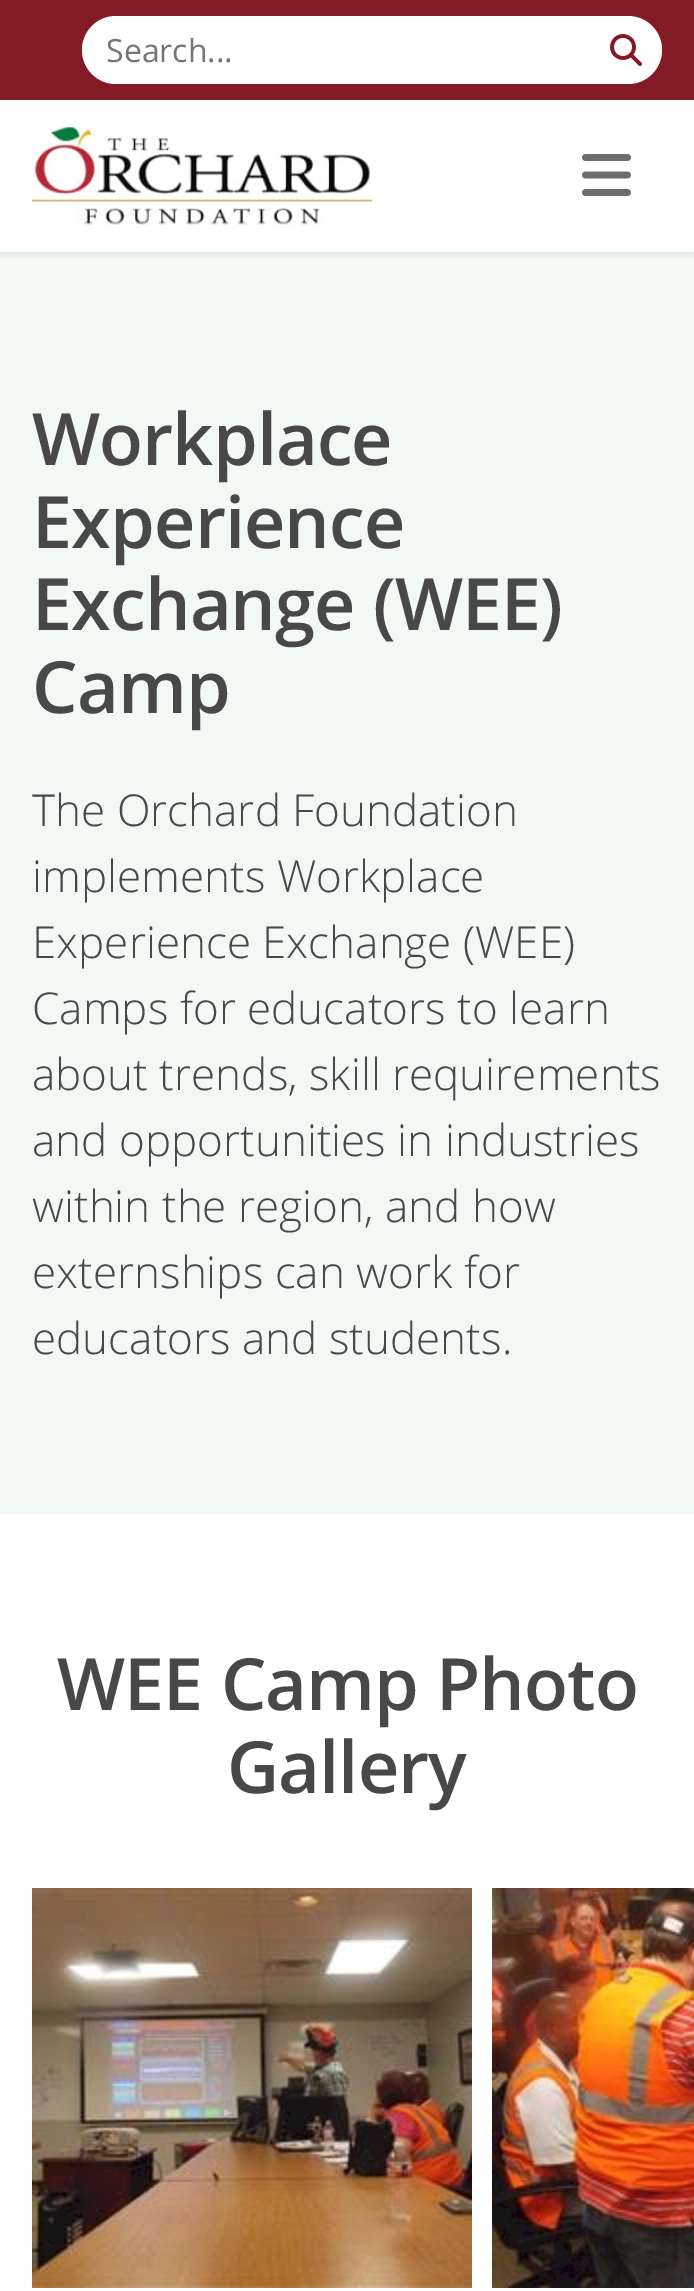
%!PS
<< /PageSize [694 2291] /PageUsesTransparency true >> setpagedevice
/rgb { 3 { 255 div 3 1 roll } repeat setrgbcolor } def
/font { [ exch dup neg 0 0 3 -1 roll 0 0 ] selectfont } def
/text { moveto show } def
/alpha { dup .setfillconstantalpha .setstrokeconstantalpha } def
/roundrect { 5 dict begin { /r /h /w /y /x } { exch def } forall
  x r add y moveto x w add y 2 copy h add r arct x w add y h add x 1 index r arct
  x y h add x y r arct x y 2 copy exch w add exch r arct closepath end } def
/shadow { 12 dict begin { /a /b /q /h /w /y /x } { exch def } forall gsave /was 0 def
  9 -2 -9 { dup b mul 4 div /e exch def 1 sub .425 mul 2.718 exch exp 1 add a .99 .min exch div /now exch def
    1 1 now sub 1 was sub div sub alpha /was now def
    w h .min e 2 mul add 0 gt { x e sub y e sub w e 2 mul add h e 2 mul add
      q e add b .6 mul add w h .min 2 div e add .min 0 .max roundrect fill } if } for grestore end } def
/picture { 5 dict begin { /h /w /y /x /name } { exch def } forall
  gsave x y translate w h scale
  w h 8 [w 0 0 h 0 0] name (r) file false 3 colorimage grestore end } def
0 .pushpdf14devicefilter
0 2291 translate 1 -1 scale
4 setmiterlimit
255 255 255 rgb
0 0 694 2291 rectfill
242 249 245 rgb
0 252 694 1262 rectfill
gsave
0 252 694 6 rectclip
0 0 0 rgb
0 100 694 152 0 7 0.1 shadow
grestore
131 27 38 rgb
0 0 694 100 rectfill
255 255 255 rgb
82 16 580 68 34 roundrect fill
(img_01.rgb) 610 34 32 32 picture
(img_02.rgb) 32 126 341 100 picture
(img_03.rgb) 582 154 49 42 picture
(img_04.rgb) 32 1888 440 400 picture
(img_05.rgb) 492 1888 202 400 picture
/OpenSans-Regular 32 font
117 117 117 rgb
(Search...) 106 62 text
/OpenSans-SemiBold 72 font
72 72 72 rgb
32 465 moveto -0.9 0 (Workplace) ashow
32 548 moveto -0.9 0 (Experience) ashow
32 630 moveto -0.9 0 (Exchange \(WEE\)) ashow
32 713 moveto -0.9 0 (Camp) ashow
/OpenSans-Light 44 font
(The Orchard Foundation) 32 826 text
(implements Workplace) 32 892 text
(Experience Exchange \(WEE\)) 32 958 text
(Camps for educators to learn) 32 1024 text
(about trends, skill requirements) 32 1090 text
(and opportunities in industries) 32 1156 text
(within the region, and how) 32 1222 text
(externships can work for) 32 1288 text
(educators and students.) 32 1354 text
/OpenSans-SemiBold 72 font
57 1710 moveto -0.9 0 (WEE Camp Photo) ashow
227 1793 moveto -0.9 0 (Gallery) ashow
.poppdf14devicefilter showpage
